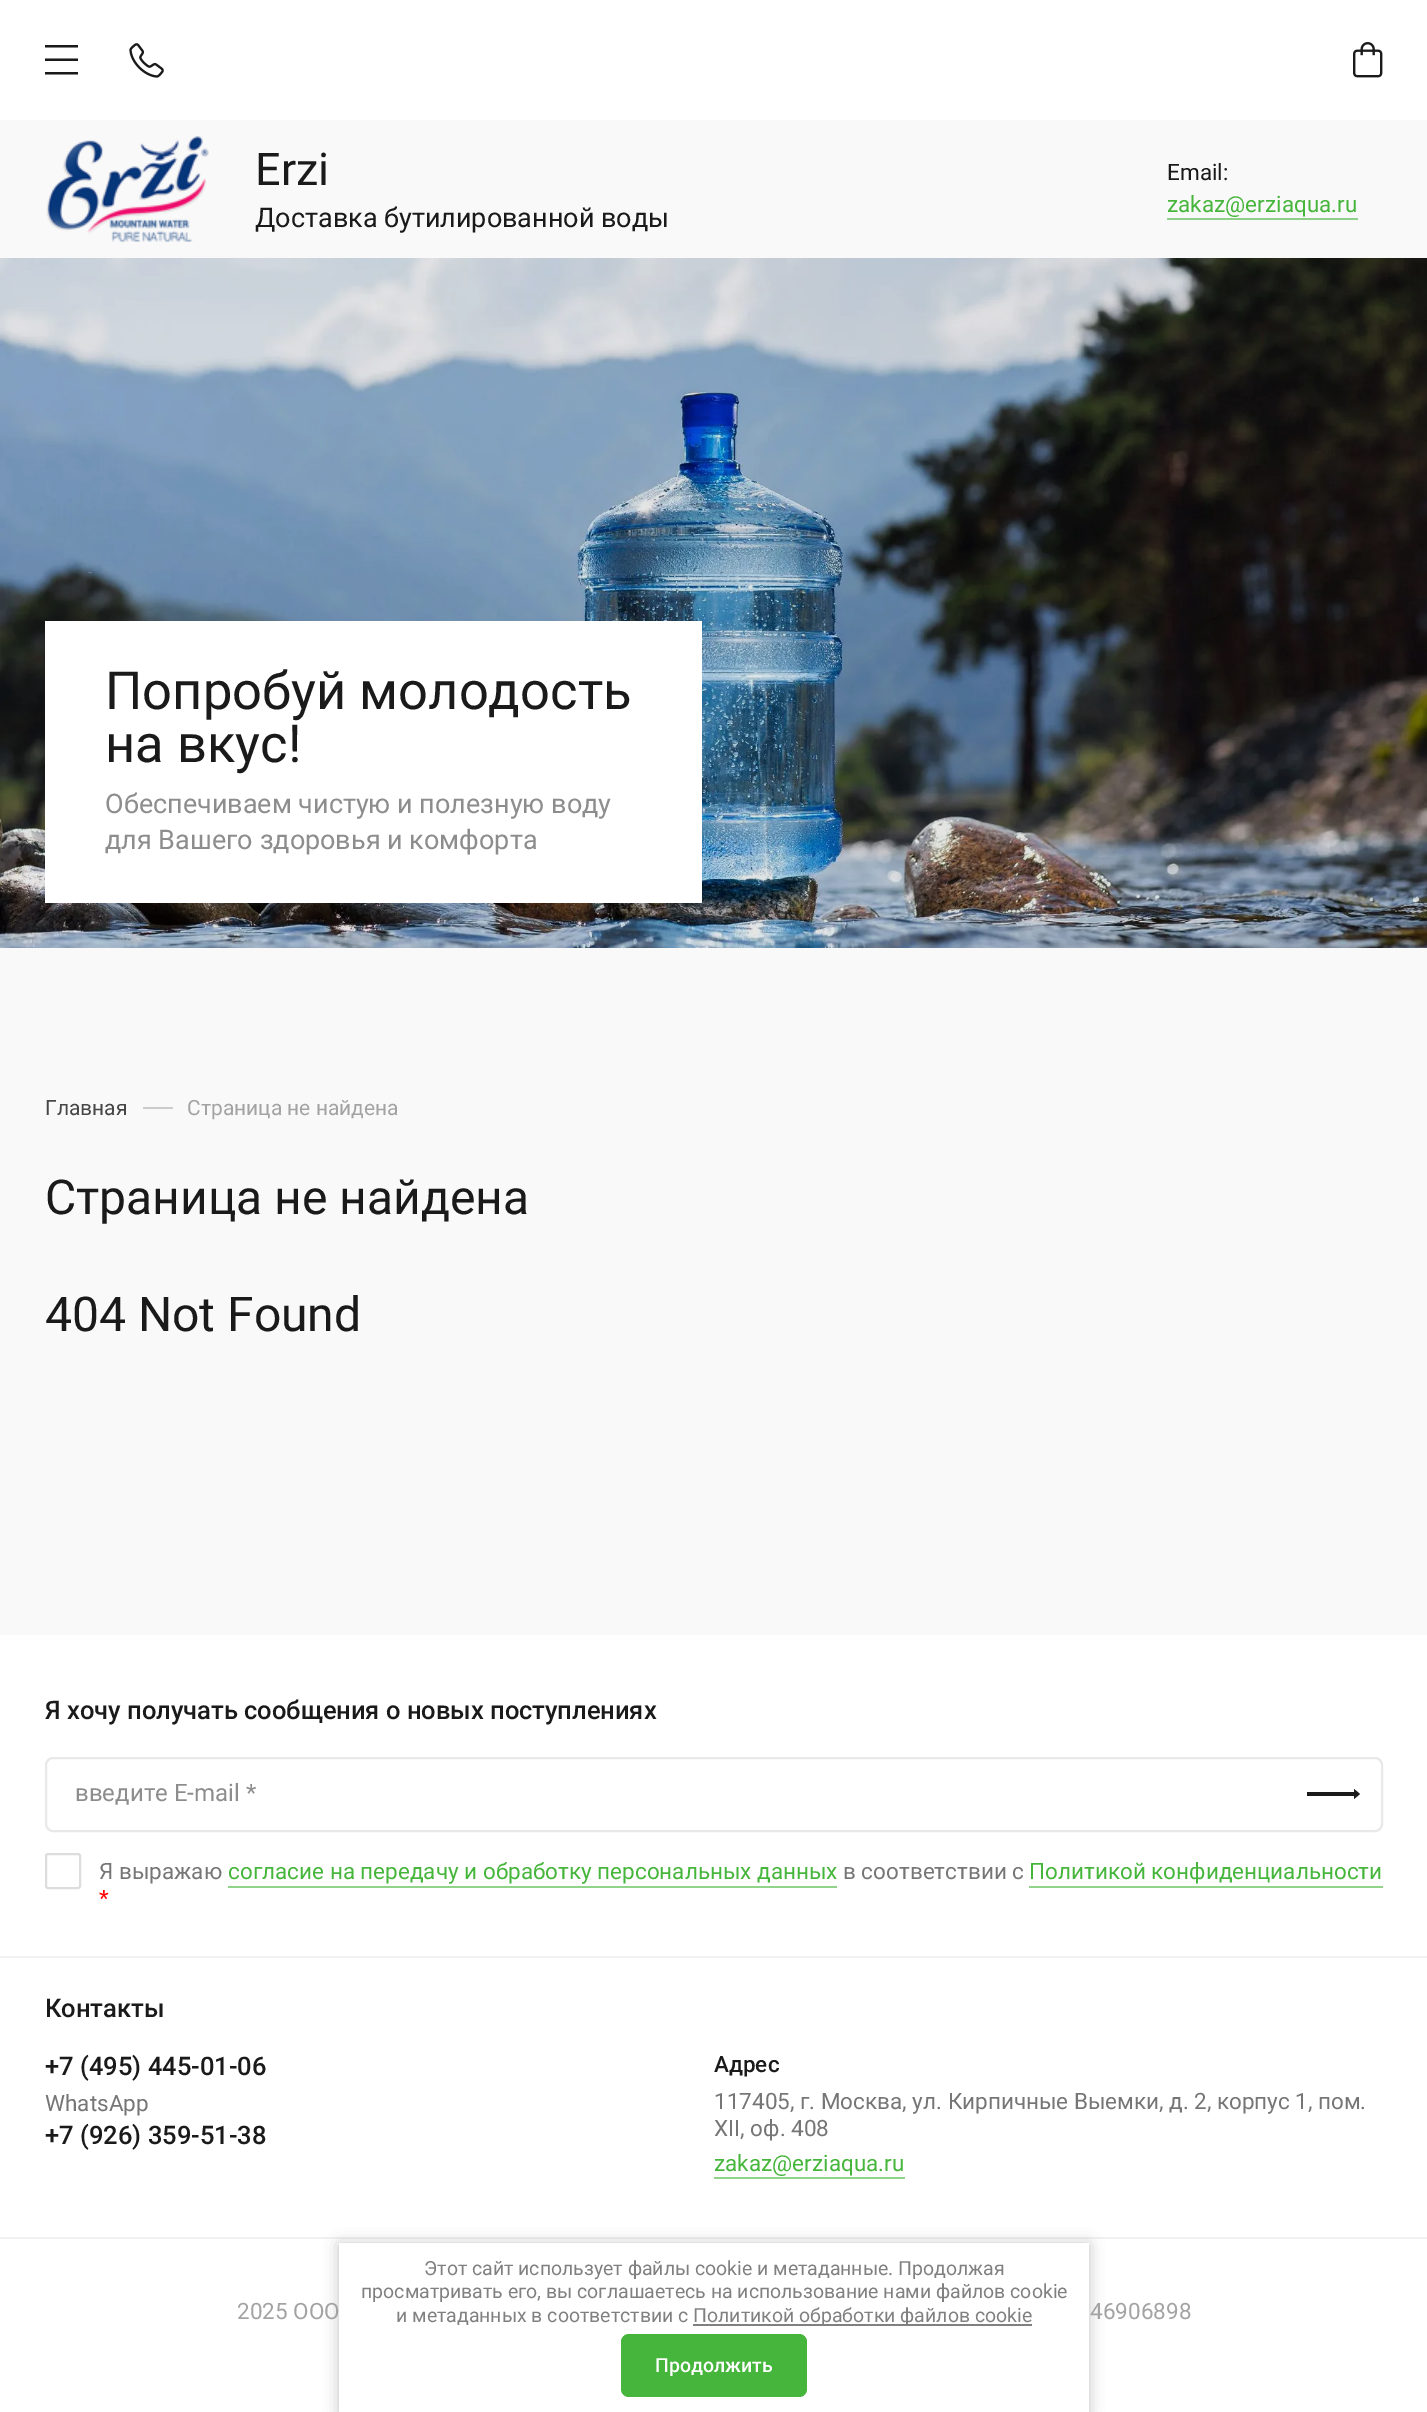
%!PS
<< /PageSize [1427 2412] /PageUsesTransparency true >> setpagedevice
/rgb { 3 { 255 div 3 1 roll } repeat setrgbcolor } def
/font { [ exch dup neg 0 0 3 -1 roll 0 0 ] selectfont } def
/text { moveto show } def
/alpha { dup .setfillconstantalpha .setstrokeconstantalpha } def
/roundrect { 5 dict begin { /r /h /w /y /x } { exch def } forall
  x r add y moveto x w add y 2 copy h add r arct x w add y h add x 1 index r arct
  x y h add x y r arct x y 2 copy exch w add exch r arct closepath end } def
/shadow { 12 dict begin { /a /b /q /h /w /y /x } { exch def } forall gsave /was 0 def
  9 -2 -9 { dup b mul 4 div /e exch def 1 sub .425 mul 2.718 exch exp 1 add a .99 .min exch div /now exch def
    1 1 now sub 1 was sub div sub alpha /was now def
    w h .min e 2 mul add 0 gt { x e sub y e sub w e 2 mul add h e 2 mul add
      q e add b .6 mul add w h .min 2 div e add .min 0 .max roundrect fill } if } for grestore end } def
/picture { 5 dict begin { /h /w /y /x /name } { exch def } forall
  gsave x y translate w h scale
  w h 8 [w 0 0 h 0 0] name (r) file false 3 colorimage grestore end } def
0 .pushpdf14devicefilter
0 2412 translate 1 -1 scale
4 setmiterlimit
249 249 249 rgb
0 0 1427 2412 rectfill
255 255 255 rgb
0 0 1427 120 rectfill
26 26 26 rgb
78 47.5 moveto -33 0 rlineto 0 -2.5 rlineto 33 0 rlineto closepath 78 61 moveto -33 0 rlineto 0 -2.5 rlineto 33 0 rlineto closepath 45 74.5 moveto 33 0 rlineto 0 -2.5 rlineto -33 0 rlineto closepath eofill
(img_01.rgb) 129 43 35 35 picture
(img_02.rgb) 1353 42 30 36 picture
(img_03.rgb) 46 136 163 107 picture
142 208 135 rgb
1167 218 191 2 rectfill
(img_04.rgb) 0 258 1427 690 picture
255 255 255 rgb
45 621 657 282 rectfill
204 204 204 rgb
143 1107 30 2 rectfill
255 255 255 rgb
0 1635 1427 777 rectfill
232 232 232 rgb
2 setlinewidth
46 1758 1336 73 7 roundrect stroke
gsave
1307 1788 54 12 rectclip
26 26 26 rgb
1354 1796 moveto 0 3 rlineto 6 -5 rlineto -6 -5 rlineto 0 3 rlineto -48 0 rlineto 0 4 rlineto closepath fill
grestore
221 221 221 rgb
46 1854 34 34 2 roundrect stroke
144 211 137 rgb
228 1886 609 2 rectfill
1029 1886 354 2 rectfill
241 241 241 rgb
0 1956 1427 2 rectfill
144 211 137 rgb
714 2177 191 2 rectfill
241 241 241 rgb
0 2237 1427 2 rectfill
0 0 0 rgb
339 2244 750 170 0 7.5 0.23 shadow
255 255 255 rgb
339 2243 750 169 rectfill
128 128 128 rgb
693 2324 339 2 rectfill
70 181 59 rgb
621 2334 186 63 8 roundrect fill
/Roboto-Regular 45 font
26 26 26 rgb
(Erzi) 255 185 text
/Roboto-Regular 27 font
(Доставка бутилированной воды) 255 227 text
/Roboto-Regular 22.5 font
(Email:) 1167 180 text
70 181 59 rgb
(zakaz@erziaqua.ru) 1167 212 text
/Roboto-Regular 52.5 font
26 26 26 rgb
(Попробуй молодость) 105 709 text
(на вкус!) 105 762 text
/Roboto-Regular 27 font
141 141 141 rgb
(Обеспечиваем чистую и полезную воду) 105 813 text
(для Вашего здоровья и комфорта) 105 849 text
/Roboto-Regular 21 font
71 71 71 rgb
(Главная) 45 1115 text
163 163 163 rgb
(Страница не найдена) 187 1115 text
/Roboto-Regular 48 font
26 26 26 rgb
(Страница не найдена) 45 1214 text
(404 Not Found) 45 1331 text
/Roboto-Medium 25.5 font
(Я хочу получать сообщения о новых поступлениях) 45 1719 text
/Roboto-Regular 24 font
141 141 141 rgb
(введите E-mail *) 75 1801 text
/Roboto-Regular 22.5 font
118 118 118 rgb
(Я выражаю) 99 1879 text
70 181 59 rgb
(согласие на передачу и обработку персональных данных) 228 1879 text
118 118 118 rgb
(в соответствии с) 843 1879 text
70 181 59 rgb
(Политикой конфиденциальности) 1029 1879 text
255 0 0 rgb
(*) 99 1906 text
/Roboto-Medium 25.5 font
26 26 26 rgb
(Контакты) 45 2017 text
(+7 \(495\) 445-01-06) 45 2075 text
/Roboto-Regular 22.5 font
118 118 118 rgb
(WhatsApp) 45 2111 text
/Roboto-Medium 25.5 font
26 26 26 rgb
(+7 \(926\) 359-51-38) 45 2144 text
/Roboto-Medium 22.5 font
(Адрес) 714 2072 text
/Roboto-Regular 22.5 font
118 118 118 rgb
(117405, г. Москва, ул. Кирпичные Выемки, д. 2, корпус 1, пом.) 714 2109 text
(XII, оф. 408) 714 2136 text
70 181 59 rgb
(zakaz@erziaqua.ru) 714 2171 text
163 163 163 rgb
(2025 ООО) 237 2319 text
(46906898) 1090 2319 text
/Roboto-Regular 19.5 font
128 128 128 rgb
(Этот сайт использует файлы cookie и метаданные. Продолжая) 424 2275 text
(просматривать его, вы соглашаетесь на использование нами файлов cookie) 361 2298 text
(и метаданных в соответствии с) 396 2322 text
(Политикой обработки файлов cookie) 693 2322 text
/Roboto-Medium 19.5 font
255 255 255 rgb
(Продолжить) 655 2372 text
.poppdf14devicefilter showpage
